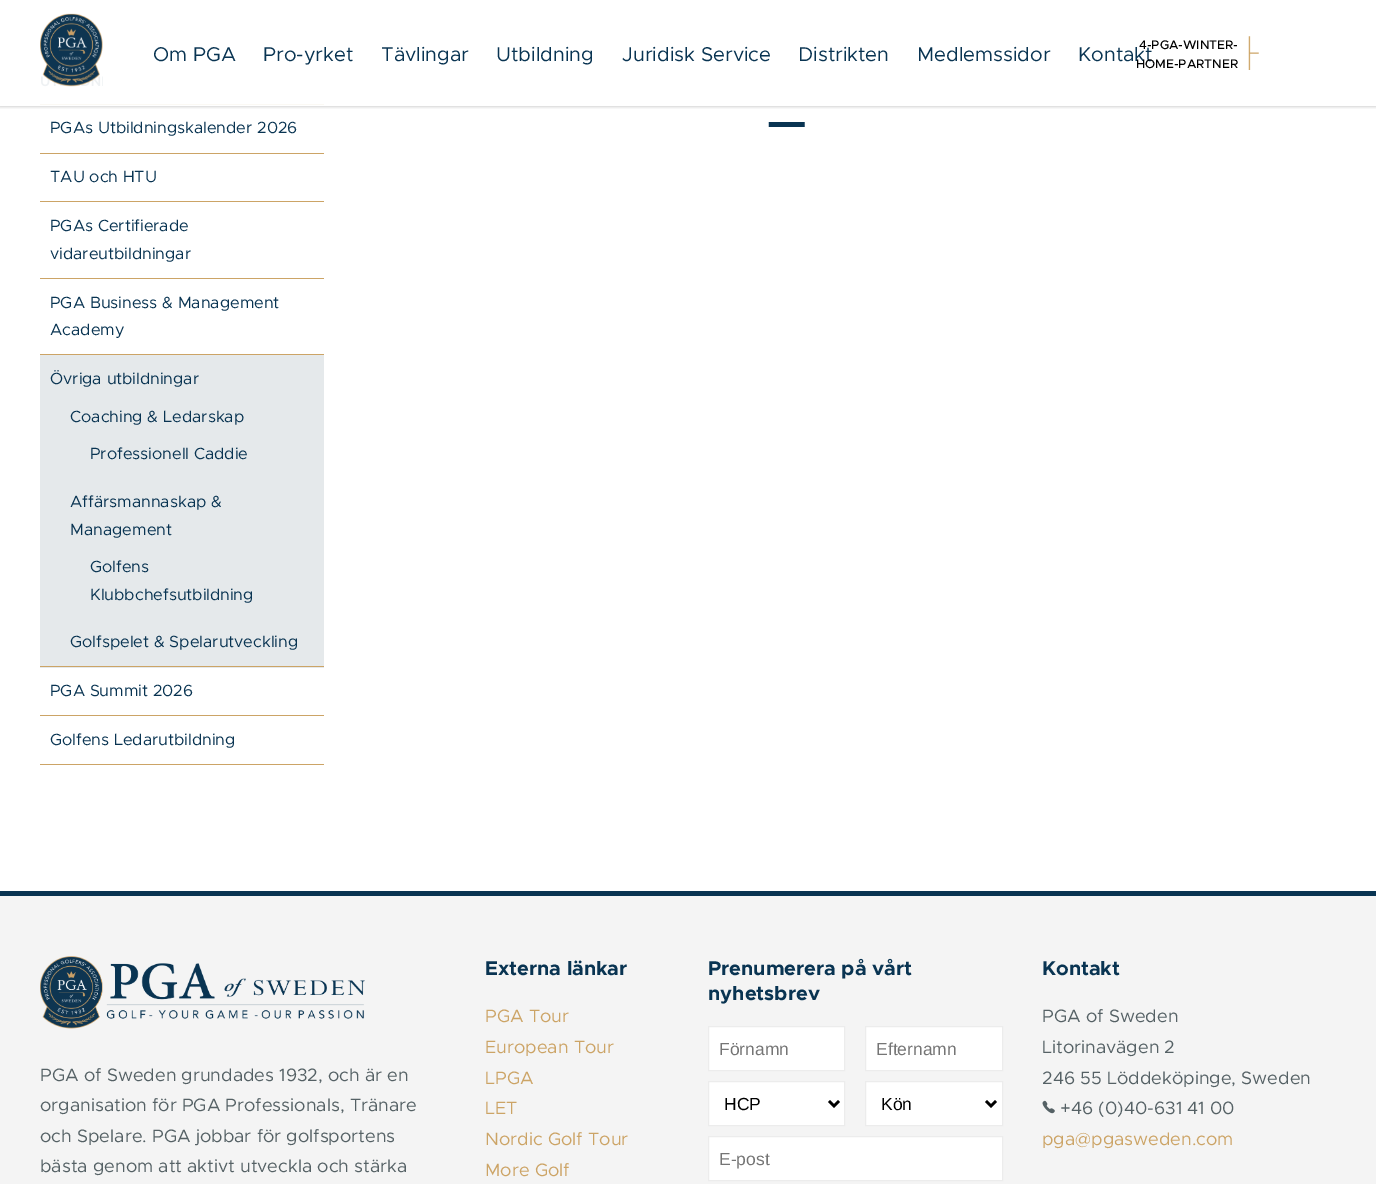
%!PS
<< /PageSize [1376 1184] /PageUsesTransparency true >> setpagedevice
/rgb { 3 { 255 div 3 1 roll } repeat setrgbcolor } def
/font { [ exch dup neg 0 0 3 -1 roll 0 0 ] selectfont } def
/text { moveto show } def
/alpha { dup .setfillconstantalpha .setstrokeconstantalpha } def
/roundrect { 5 dict begin { /r /h /w /y /x } { exch def } forall
  x r add y moveto x w add y 2 copy h add r arct x w add y h add x 1 index r arct
  x y h add x y r arct x y 2 copy exch w add exch r arct closepath end } def
/shadow { 12 dict begin { /a /b /q /h /w /y /x } { exch def } forall gsave /was 0 def
  9 -2 -9 { dup b mul 4 div /e exch def 1 sub .425 mul 2.718 exch exp 1 add a .99 .min exch div /now exch def
    1 1 now sub 1 was sub div sub alpha /was now def
    w h .min e 2 mul add 0 gt { x e sub y e sub w e 2 mul add h e 2 mul add
      q e add b .6 mul add w h .min 2 div e add .min 0 .max roundrect fill } if } for grestore end } def
/picture { 5 dict begin { /h /w /y /x /name } { exch def } forall
  gsave x y translate w h scale
  w h 8 [w 0 0 h 0 0] name (r) file false 3 colorimage grestore end } def
0 .pushpdf14devicefilter
0 1184 translate 1 -1 scale
4 setmiterlimit
255 255 255 rgb
0 0 1376 1184 rectfill
204 164 102 rgb
40 104 284 1 rectfill
gsave
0 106 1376 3 rectclip
0 0 0 rgb
0 0 1376 106 0 2 0.3 shadow
grestore
0.93 alpha
255 255 255 rgb
40 104 284 1 rectfill
1 alpha
(img_01.rgb) 40 13 63 74 picture
(img_02.rgb) 1248 36 11 34 picture
204 164 102 rgb
40 153 284 1 rectfill
40 201 284 1 rectfill
40 278 284 1 rectfill
40 354 284 1 rectfill
229 233 235 rgb
40 355 284 313 rectfill
204 164 102 rgb
40 666 284 1 rectfill
40 715 284 1 rectfill
40 764 284 1 rectfill
244 244 244 rgb
0 896 1376 288 rectfill
9 52 82 rgb
0 891 1376 5 rectfill
(img_03.rgb) 40 956 325 73 picture
255 255 255 rgb
708.5 1026.5 moveto 136 0 rlineto 0 44 rlineto -136 0 rlineto closepath gsave fill grestore
236 236 236 rgb
stroke
255 255 255 rgb
865.5 1026.5 moveto 137 0 rlineto 0 44 rlineto -137 0 rlineto closepath gsave fill grestore
236 236 236 rgb
stroke
255 255 255 rgb
708.5 1081.5 moveto 136 0 rlineto 0 44 rlineto -136 0 rlineto closepath gsave fill grestore
236 236 236 rgb
stroke
0 0 0 rgb
2.5 setlinewidth
829 1101 moveto 5 5 rlineto 5 -5 rlineto stroke
255 255 255 rgb
865.5 1081.5 moveto 137 0 rlineto 0 44 rlineto -137 0 rlineto closepath gsave fill grestore
236 236 236 rgb
1 setlinewidth
stroke
0 0 0 rgb
2.5 setlinewidth
986 1101 moveto 5 5 rlineto 5 -5 rlineto stroke
255 255 255 rgb
708.5 1136.5 moveto 294 0 rlineto 0 44 rlineto -294 0 rlineto closepath gsave fill grestore
236 236 236 rgb
1 setlinewidth
stroke
(img_04.rgb) 1042 1100 13 14 picture
/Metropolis-Regular 20 font
9 52 82 rgb
(Om PGA) 153 61 text
(Pro-yrket) 263 61 text
(Tävlingar) 381 61 text
(Utbildning) 496 61 text
(Juridisk Service) 622 61 text
(Distrikten) 798 61 text
(Medlemssidor) 917 61 text
(Kontakt) 1078 61 text
/Metropolis-Medium 12.5 font
0 0 0 rgb
(4-PGA-WINTER-) 1139 49 text
(HOME-PARTNER) 1136 68 text
/Metropolis-Regular 16.25 font
9 52 82 rgb
(PGAs Utbildningskalender 2026) 50 133 text
(TAU och HTU) 50 182 text
(PGAs Certifierade) 50 231 text
(vidareutbildningar) 50 259 text
(PGA Business & Management) 50 308 text
(Academy) 50 335 text
(Övriga utbildningar) 50 384 text
(Coaching & Ledarskap) 70 422 text
(Professionell Caddie) 90 459 text
(Affärsmannaskap &) 70 507 text
(Management) 70 535 text
(Golfens) 90 572 text
(Klubbchefsutbildning) 90 600 text
(Golfspelet & Spelarutveckling) 70 647 text
(PGA Summit 2026) 50 696 text
(Golfens Ledarutbildning) 50 745 text
/Metropolis-Bold 60 font
(_) 769 118 text
/Metropolis-Regular 18 font
85 97 101 rgb
(PGA of Sweden grundades 1932, och är en) 40 1081 text
(organisation för PGA Professionals, Tränare) 40 1111 text
(och Spelare. PGA jobbar för golfsportens) 40 1142 text
(bästa genom att aktivt utveckla och stärka) 40 1172 text
/Metropolis-Bold 20 font
9 52 82 rgb
(Externa länkar) 485 975 text
/Metropolis-Regular 18 font
204 164 102 rgb
(PGA Tour) 485 1022 text
(European Tour) 485 1053 text
(LPGA) 485 1084 text
(LET) 485 1114 text
(Nordic Golf Tour) 485 1145 text
(More Golf) 485 1176 text
/Metropolis-Bold 20 font
9 52 82 rgb
(Prenumerera på vårt) 708 975 text
(nyhetsbrev) 708 1000 text
/LiberationSans-Regular 17.5 font
117 117 117 rgb
(Förnamn) 719 1055 text
(Efternamn) 876 1055 text
0 0 0 rgb
(HCP) 724 1110 text
(Kön) 881 1110 text
117 117 117 rgb
(E-post) 719 1165 text
/Metropolis-Bold 20 font
9 52 82 rgb
(Kontakt) 1042 975 text
/Metropolis-Regular 18 font
85 97 101 rgb
(PGA of Sweden) 1042 1022 text
(Litorinavägen 2) 1042 1053 text
(246 55 Löddeköpinge, Sweden) 1042 1084 text
(+46 \(0\)40-631 41 00) 1060 1114 text
204 164 102 rgb
(pga@pgasweden.com) 1042 1145 text
.poppdf14devicefilter showpage
